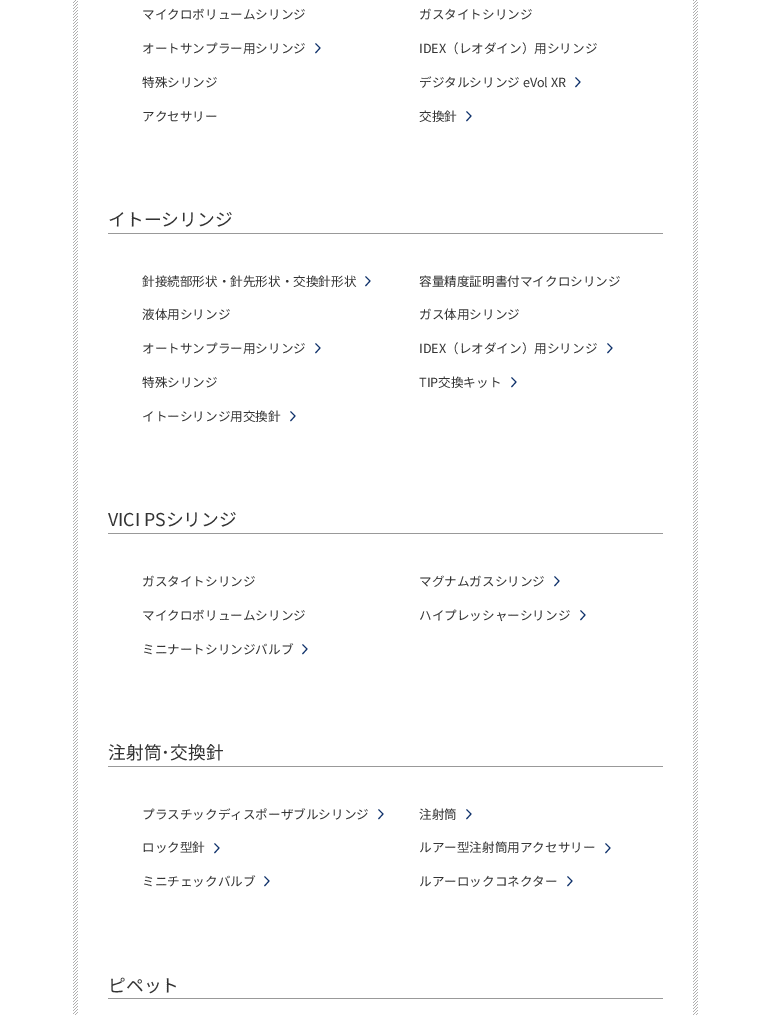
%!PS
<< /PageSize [771 1015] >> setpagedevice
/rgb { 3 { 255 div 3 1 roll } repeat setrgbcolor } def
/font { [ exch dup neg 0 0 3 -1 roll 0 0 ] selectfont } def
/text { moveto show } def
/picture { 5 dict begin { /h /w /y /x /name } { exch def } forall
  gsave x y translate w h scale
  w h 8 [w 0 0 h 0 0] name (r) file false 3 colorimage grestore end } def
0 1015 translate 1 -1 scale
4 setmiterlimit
255 255 255 rgb
0 0 771 1015 rectfill
(img_01.rgb) 73 0 625 1015 picture
78 0 615 1015 rectfill
16 50 107 rgb
315.5 43.5 moveto 4.5 4.5 rlineto -4.5 5 rlineto stroke
575.5 77.5 moveto 4.5 4.5 rlineto -4.5 5 rlineto stroke
466.5 111.5 moveto 4.5 4.5 rlineto -4.5 5 rlineto stroke
153 153 153 rgb
108 233 555 1 rectfill
16 50 107 rgb
365.5 276.5 moveto 4.5 4.5 rlineto -4.5 5 rlineto stroke
315.5 343.5 moveto 4.5 4.5 rlineto -4.5 5 rlineto stroke
607.5 343.5 moveto 4.5 4.5 rlineto -4.5 5 rlineto stroke
511.5 377.5 moveto 4.5 4.5 rlineto -4.5 5 rlineto stroke
290.5 411.5 moveto 4.5 4.5 rlineto -4.5 5 rlineto stroke
153 153 153 rgb
108 533 555 1 rectfill
16 50 107 rgb
554.5 576.5 moveto 4.5 4.5 rlineto -4.5 5 rlineto stroke
580.5 610.5 moveto 4.5 4.5 rlineto -4.5 5 rlineto stroke
302.5 644.5 moveto 4.5 4.5 rlineto -4.5 5 rlineto stroke
153 153 153 rgb
108 766 555 1 rectfill
16 50 107 rgb
378.5 809.5 moveto 4.5 4.5 rlineto -4.5 5 rlineto stroke
466.5 809.5 moveto 4.5 4.5 rlineto -4.5 5 rlineto stroke
214.5 843.5 moveto 4.5 4.5 rlineto -4.5 5 rlineto stroke
605.5 843.5 moveto 4.5 4.5 rlineto -4.5 5 rlineto stroke
264.5 876.5 moveto 4.5 4.5 rlineto -4.5 5 rlineto stroke
567.5 876.5 moveto 4.5 4.5 rlineto -4.5 5 rlineto stroke
153 153 153 rgb
108 998 555 1 rectfill
/NotoSansJP-Regular 12.6 font
51 51 51 rgb
(マイクロボリュームシリンジ) 142 19 text
(ガスタイトシリンジ) 419 19 text
(オートサンプラー用シリンジ) 142 53 text
(IDEX（レオダイン）用シリンジ) 419 53 text
(特殊シリンジ) 142 87 text
(デジタルシリンジ eVol XR) 419 87 text
(アクセサリー) 142 121 text
(交換針) 419 121 text
/NotoSansJP-Regular 17.75 font
(イトーシリンジ) 108 226 text
/NotoSansJP-Regular 12.6 font
(針接続部形状・針先形状・交換針形状) 142 286 text
(容量精度証明書付マイクロシリンジ) 419 286 text
(液体用シリンジ) 142 319 text
(ガス体用シリンジ) 419 319 text
(オートサンプラー用シリンジ) 142 353 text
(IDEX（レオダイン）用シリンジ) 419 353 text
(特殊シリンジ) 142 387 text
(TIP交換キット) 419 387 text
(イトーシリンジ用交換針) 142 421 text
/NotoSansJP-Regular 17.75 font
(VICI PSシリンジ) 108 526 text
/NotoSansJP-Regular 12.6 font
(ガスタイトシリンジ) 142 586 text
(マグナムガスシリンジ) 419 586 text
(マイクロボリュームシリンジ) 142 620 text
(ハイプレッシャーシリンジ) 419 620 text
(ミニナートシリンジバルブ) 142 654 text
/NotoSansJP-Regular 17.75 font
(注射筒･交換針) 108 759 text
/NotoSansJP-Regular 12.6 font
(プラスチックディスポーザブルシリンジ) 142 819 text
(注射筒) 419 819 text
(ロック型針) 142 852 text
(ルアー型注射筒用アクセサリー) 419 852 text
(ミニチェックバルブ) 142 886 text
(ルアーロックコネクター) 419 886 text
/NotoSansJP-Regular 17.75 font
(ピペット) 108 992 text
showpage
